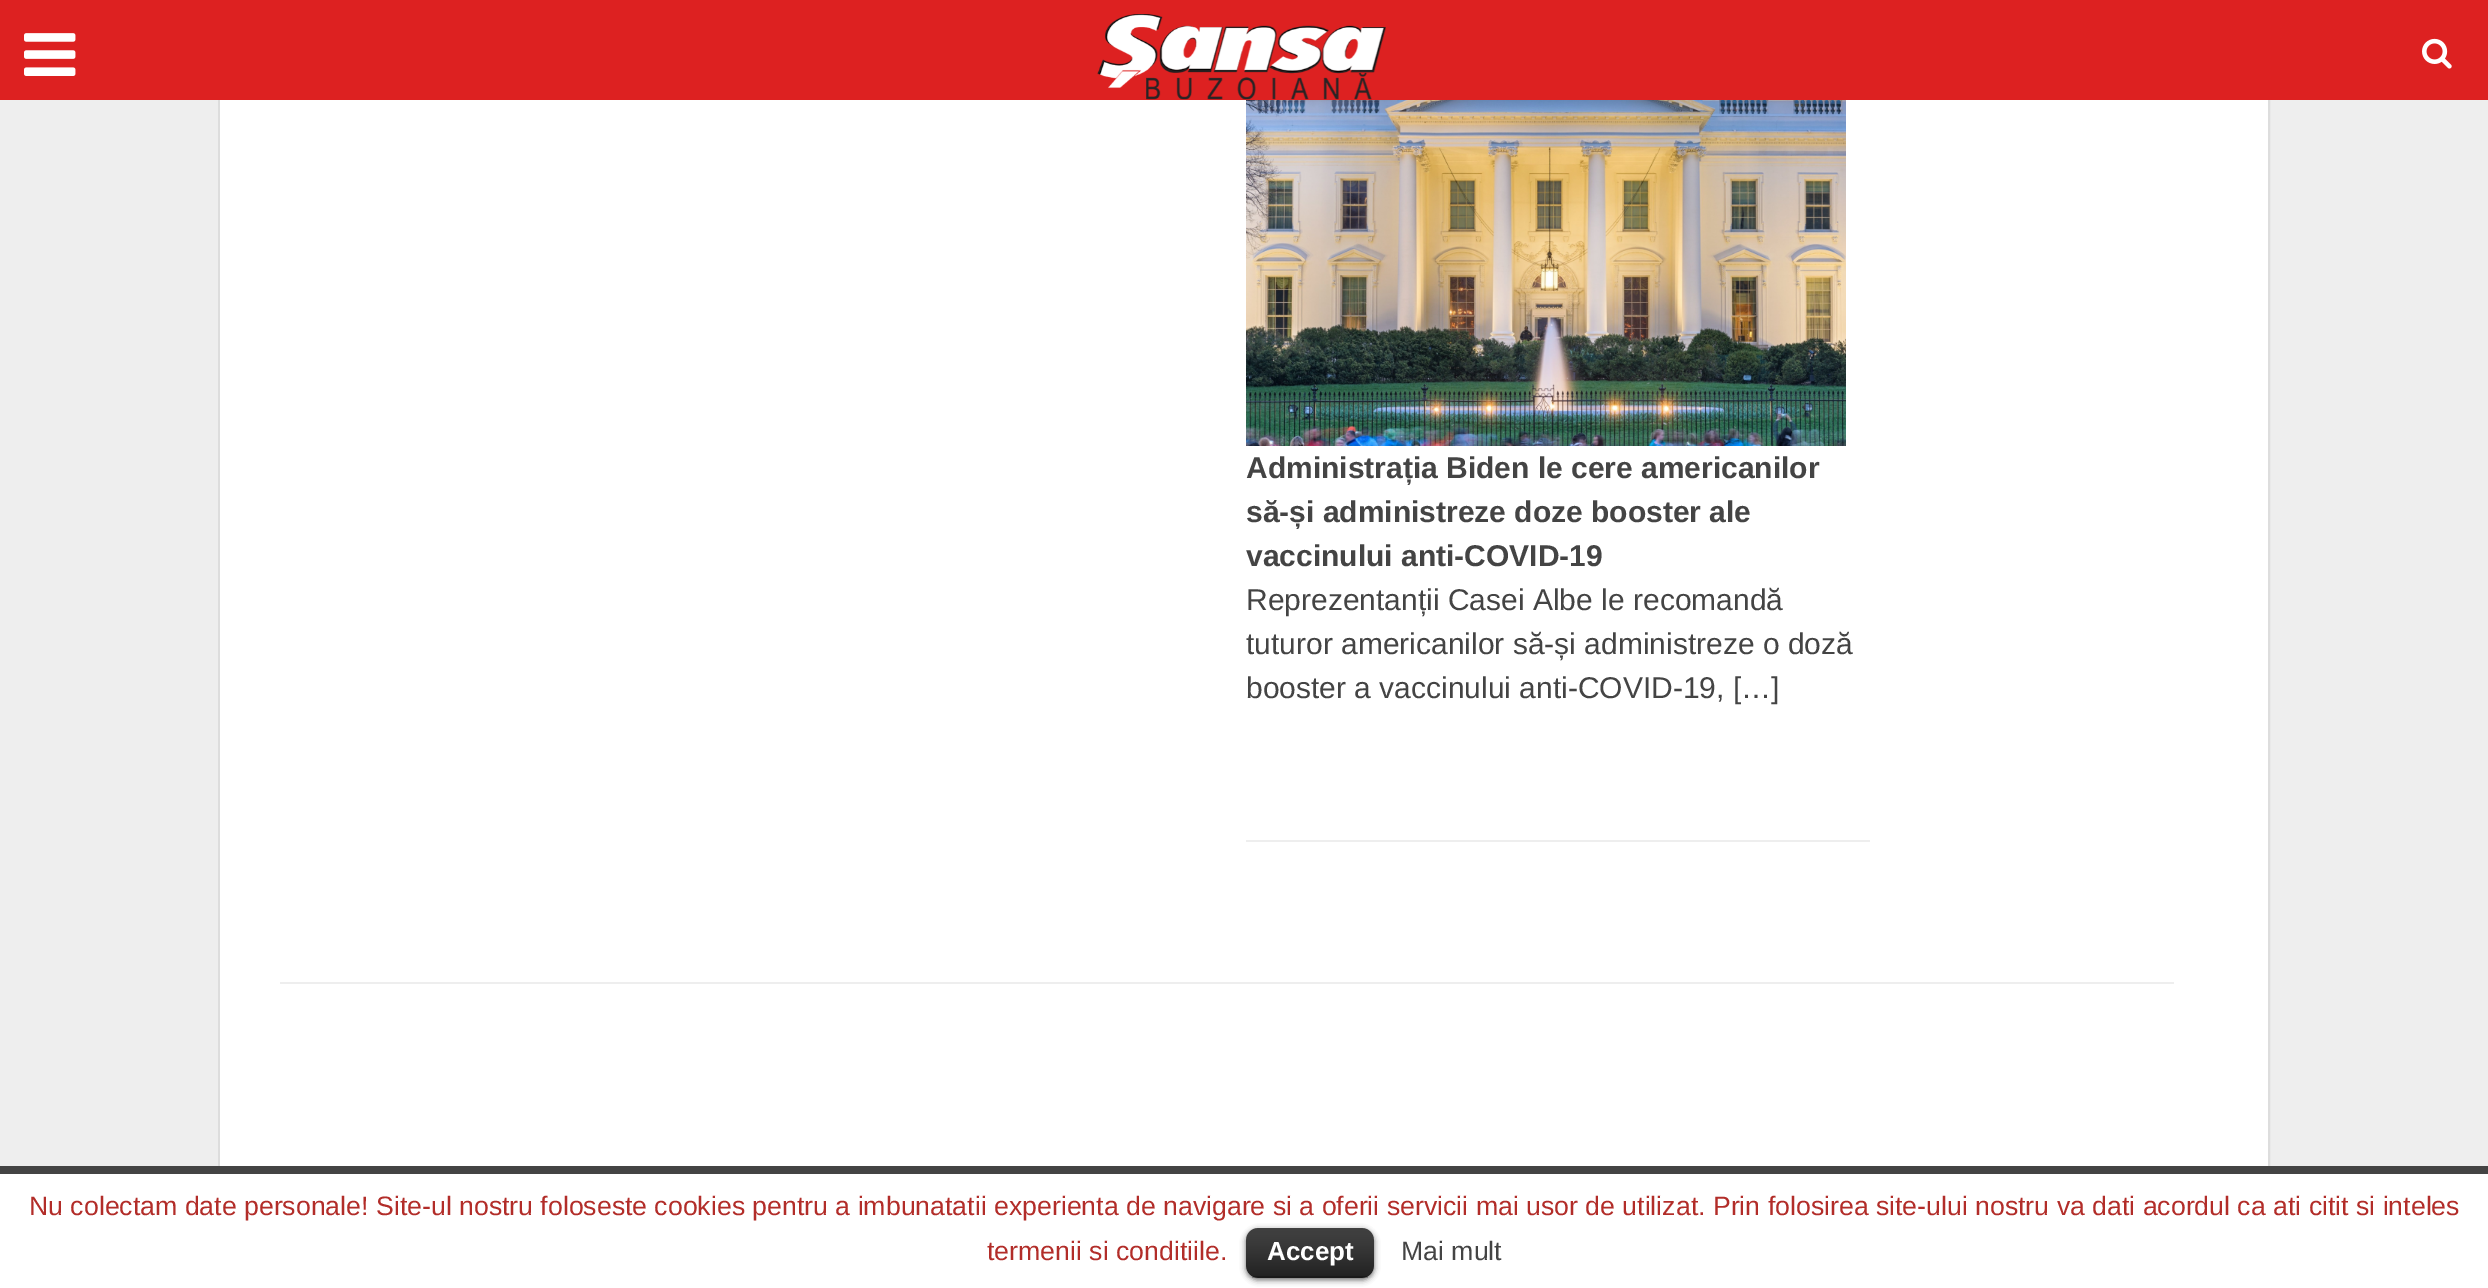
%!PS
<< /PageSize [2488 1288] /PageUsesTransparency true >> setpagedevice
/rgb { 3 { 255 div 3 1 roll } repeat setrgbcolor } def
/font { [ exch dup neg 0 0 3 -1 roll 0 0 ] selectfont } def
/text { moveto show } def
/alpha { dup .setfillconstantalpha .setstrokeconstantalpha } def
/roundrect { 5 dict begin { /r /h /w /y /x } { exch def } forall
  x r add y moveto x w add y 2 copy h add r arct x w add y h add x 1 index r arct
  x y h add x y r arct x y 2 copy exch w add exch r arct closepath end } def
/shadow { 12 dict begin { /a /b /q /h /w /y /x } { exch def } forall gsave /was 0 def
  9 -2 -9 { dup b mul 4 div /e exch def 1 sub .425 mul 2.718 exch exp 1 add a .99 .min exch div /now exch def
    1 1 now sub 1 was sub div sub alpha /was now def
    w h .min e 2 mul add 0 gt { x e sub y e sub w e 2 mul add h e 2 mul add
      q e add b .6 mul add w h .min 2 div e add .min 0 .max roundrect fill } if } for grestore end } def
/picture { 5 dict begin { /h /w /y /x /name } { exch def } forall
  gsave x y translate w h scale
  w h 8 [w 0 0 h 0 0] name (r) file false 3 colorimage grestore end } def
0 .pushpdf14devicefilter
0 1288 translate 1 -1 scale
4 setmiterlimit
238 238 238 rgb
0 0 2488 1288 rectfill
0.1 alpha
68 68 68 rgb
2 setlinewidth
219 -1 2050 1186 rectstroke
1 alpha
221 33 33 rgb
0 0 2488 100 rectfill
(img_01.rgb) 24 33 52 43 picture
(img_02.rgb) 1097 14 289 86 picture
(img_03.rgb) 2422 38 30 31 picture
255 255 255 rgb
220 100 2048 1066 rectfill
238 238 238 rgb
280 982 1894 2 rectfill
1246 840 624 2 rectfill
(img_04.rgb) 1246 100 600 346 picture
255 255 255 rgb
0 1174 2488 114 rectfill
68 68 68 rgb
0 1166 2488 8 rectfill
0 0 0 rgb
1246 1230 128 50 12 3 0.6 shadow
1246 1228 128 50 12 roundrect fill
(img_05.rgb) 1246 1228 128 50 picture
0.25 alpha
1252 1276 116 2 rectfill
/LiberationSans-Bold 30 font
1 alpha
68 68 68 rgb
(Administrația Biden le cere americanilor) 1246 478 text
(să-și administreze doze booster ale) 1246 522 text
(vaccinului anti-COVID-19) 1246 566 text
/LiberationSans-Regular 30 font
(Reprezentanții Casei Albe le recomandă) 1246 610 text
(tuturor americanilor să-și administreze o doză) 1246 654 text
(booster a vaccinului anti-COVID-19, […]) 1246 698 text
/LiberationSans-Regular 26.67 font
178 45 41 rgb
(Nu colectam date personale! Site-ul nostru foloseste cookies pentru a imbunatatii experienta de navigare si a oferii servicii mai usor de utilizat. Prin folosirea site-ului nostru va dati acordul ca ati citit si inteles) 29 1215 text
(termenii si conditiile.) 987 1260 text
/LiberationSans-Bold 26 font
255 255 255 rgb
(Accept) 1267 1260 text
/LiberationSans-Regular 26.67 font
68 68 68 rgb
(Mai mult) 1401 1260 text
.poppdf14devicefilter showpage
